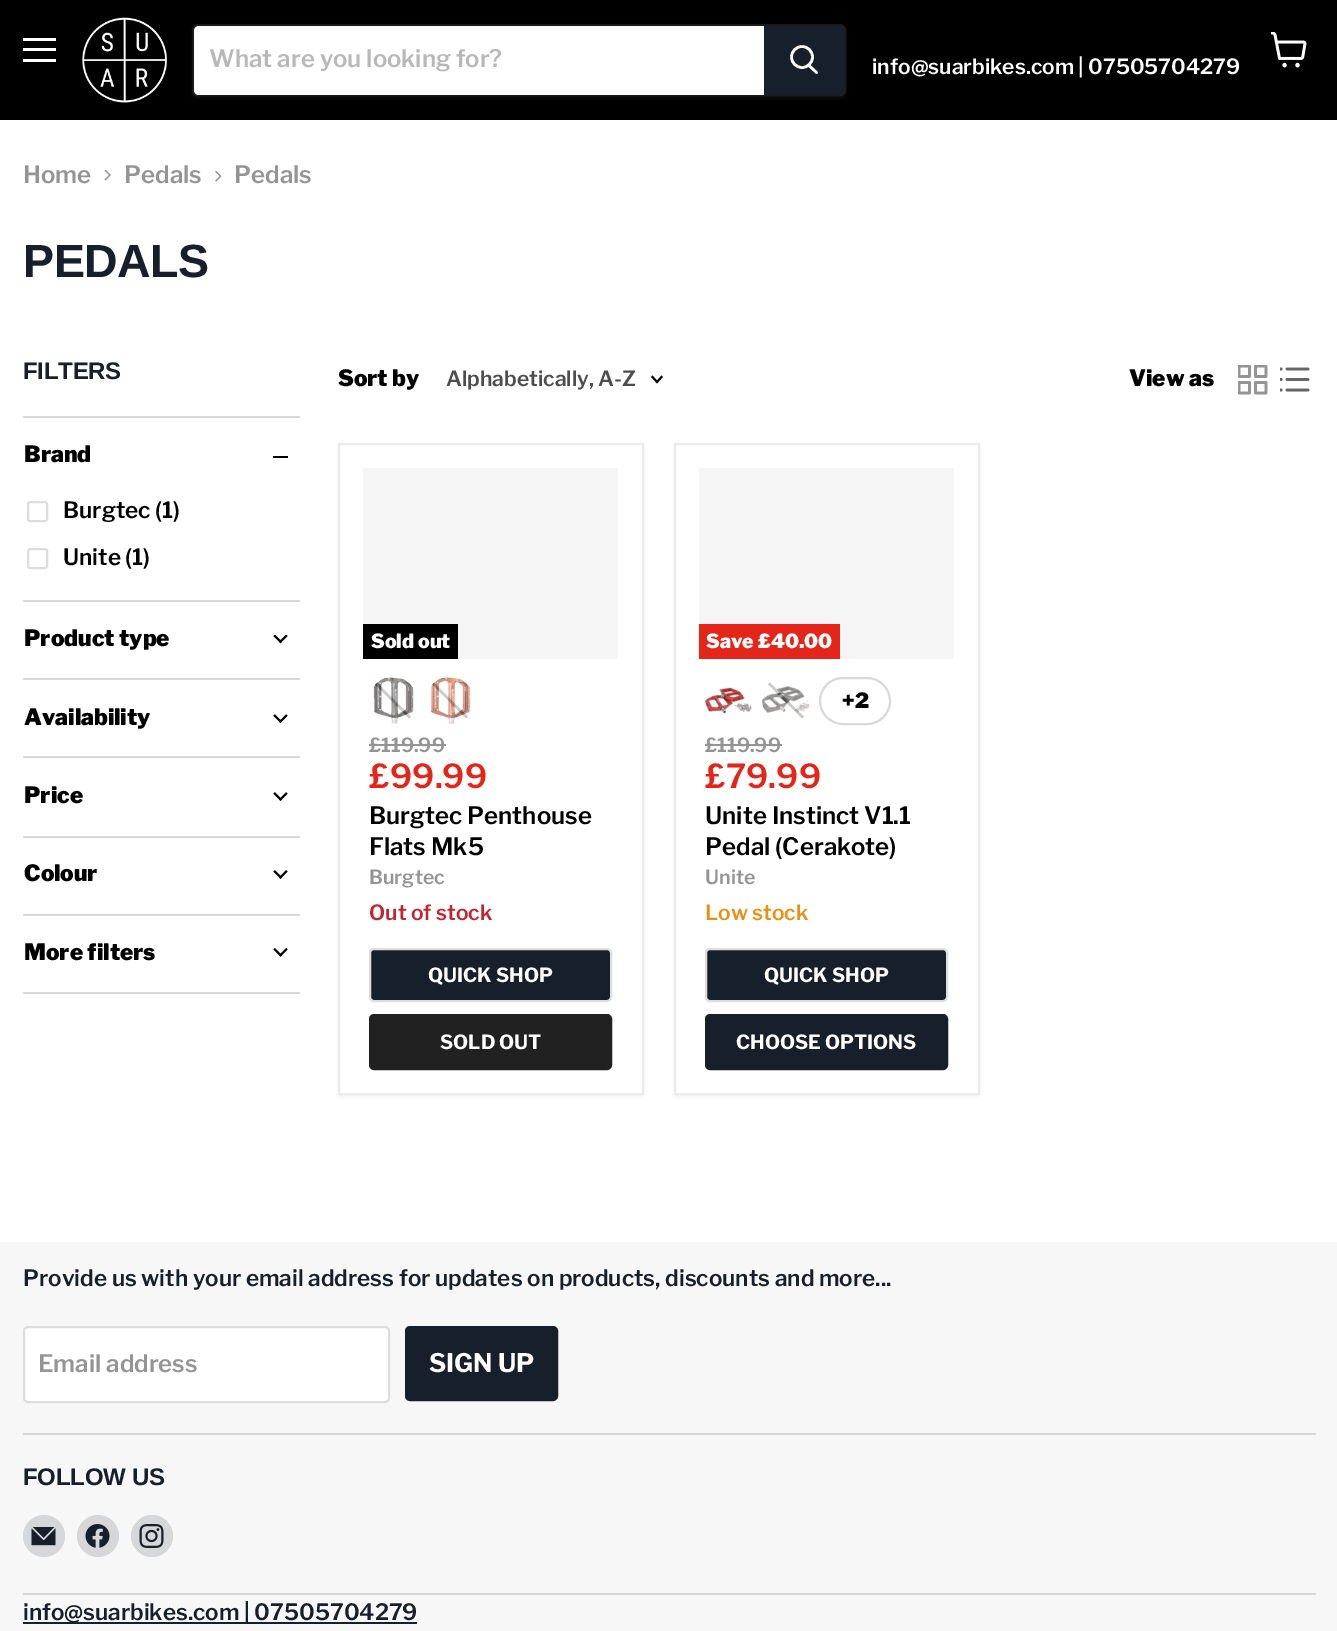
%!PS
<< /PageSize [1337 1631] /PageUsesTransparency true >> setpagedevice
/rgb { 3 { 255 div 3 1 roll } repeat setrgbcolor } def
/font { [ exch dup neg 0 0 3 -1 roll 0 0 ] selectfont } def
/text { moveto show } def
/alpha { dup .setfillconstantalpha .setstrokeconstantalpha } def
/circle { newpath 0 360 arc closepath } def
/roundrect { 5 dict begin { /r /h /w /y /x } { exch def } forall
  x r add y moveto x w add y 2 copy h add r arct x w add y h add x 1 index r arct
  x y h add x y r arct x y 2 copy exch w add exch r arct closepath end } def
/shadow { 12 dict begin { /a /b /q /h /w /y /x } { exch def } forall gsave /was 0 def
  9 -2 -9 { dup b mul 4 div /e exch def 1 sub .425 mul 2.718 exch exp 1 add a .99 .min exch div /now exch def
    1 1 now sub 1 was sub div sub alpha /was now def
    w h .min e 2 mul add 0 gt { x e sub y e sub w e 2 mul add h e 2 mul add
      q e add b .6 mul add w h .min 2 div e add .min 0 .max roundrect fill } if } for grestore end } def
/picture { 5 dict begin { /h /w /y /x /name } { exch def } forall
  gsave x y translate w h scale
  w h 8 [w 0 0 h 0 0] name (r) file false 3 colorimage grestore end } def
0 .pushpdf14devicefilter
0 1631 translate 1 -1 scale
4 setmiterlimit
255 255 255 rgb
0 0 1337 1631 rectfill
0 0 0 rgb
0 0 1337 120 rectfill
255 255 255 rgb
23 38 33 3 rectfill
23 48 33 3 rectfill
23 59 33 3 rectfill
(img_01.rgb) 82 17 85 86 picture
gsave
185 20 moveto 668 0 rlineto 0 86 rlineto -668 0 rlineto closepath 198 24 moveto 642 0 rlineto 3.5 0 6 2.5 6 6 rcurveto 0 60 rlineto 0 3.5 -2.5 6 -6 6 rcurveto -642 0 rlineto -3.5 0 -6 -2.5 -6 -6 rcurveto 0 -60 rlineto 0 -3.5 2.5 -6 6 -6 rcurveto closepath eoclip newpath
128 128 128 rgb
192 27 654 72 6 2 0.11 shadow
grestore
0.2 alpha
128 128 128 rgb
2 setlinewidth
193 25 652 70 5 roundrect stroke
1 alpha
255 255 255 rgb
199 26 moveto 565 0 rlineto 0 69 rlineto -565 0 rlineto -3 0 -5 -2 -5 -5 rcurveto 0 -59 rlineto 0 -3 2 -5 5 -5 rcurveto closepath fill
23 31 43 rgb
765 27 moveto 75 0 rlineto 2 0 4 2 4 4 rcurveto 0 59 rlineto 0 2 -2 4 -4 4 rcurveto -75 0 rlineto closepath gsave fill grestore
stroke
255 255 255 rgb
2.6 setlinewidth
1 setlinecap
816.5 72.5 moveto -7.5 -7 rlineto stroke
0 setlinecap
802 57 10.5 circle stroke
(img_02.rgb) 1271 32 36 36 picture
(img_03.rgb) 104 169 7 12 picture
(img_04.rgb) 215 170 7 12 picture
217 217 217 rgb
23 416 277 2 rectfill
0 0 0 rgb
273 456 15 2 rectfill
221 221 221 rgb
2 setlinewidth
28 502 19 19 2 roundrect stroke
28 549 19 19 2 roundrect stroke
217 217 217 rgb
23 600 277 2 rectfill
(img_05.rgb) 273 635 15 9 picture
23 678 277 2 rectfill
(img_06.rgb) 273 714 15 9 picture
23 756 277 2 rectfill
(img_07.rgb) 273 792 15 9 picture
23 836 277 2 rectfill
(img_08.rgb) 273 870 15 9 picture
23 914 277 2 rectfill
23 992 277 2 rectfill
(img_09.rgb) 273 948 15 9 picture
0 0 0 rgb
1.9 setlinewidth
2 setlinecap
657 382 moveto 4.5 -5 rlineto 657 382 moveto -4.5 -5 rlineto stroke
(img_10.rgb) 1238 365 30 30 picture
(img_11.rgb) 1280 367 30 25 picture
128 128 128 rgb
338 444 306 653 0 3 0.11 shadow
255 255 255 rgb
339 444 moveto 304 0 rlineto 0 650 rlineto -304 0 rlineto closepath gsave fill grestore
235 235 235 rgb
2 setlinewidth
0 setlinecap
stroke
245 245 245 rgb
363 468 255 191 rectfill
0 0 0 rgb
363 624 95 35 rectfill
(img_13.rgb) 375 682 36 37 picture
(img_12.rgb) 373 677 41 47 picture
(img_13.rgb) 432 682 36 37 picture
(img_14.rgb) 430 677 43 47 picture
148 148 148 rgb
369 744 77 2 rectfill
23 31 43 rgb
370 949 241 52 4 roundrect gsave fill grestore
221 221 221 rgb
stroke
33 33 33 rgb
370 1015 241 54 4 roundrect gsave fill grestore
stroke
128 128 128 rgb
674 444 306 653 0 3 0.11 shadow
255 255 255 rgb
675 444 moveto 304 0 rlineto 0 650 rlineto -304 0 rlineto closepath gsave fill grestore
235 235 235 rgb
stroke
245 245 245 rgb
699 468 255 191 rectfill
227 38 25 rgb
699 624 141 35 rectfill
(img_15.rgb) 705 686 47 28 picture
(img_13.rgb) 768 682 36 37 picture
(img_16.rgb) 762 682 48 37 picture
217 217 217 rgb
820 678 70 46 23 roundrect stroke
148 148 148 rgb
705 744 77 2 rectfill
23 31 43 rgb
706 949 241 52 4 roundrect gsave fill grestore
221 221 221 rgb
stroke
23 31 43 rgb
706 1015 241 54 4 roundrect gsave fill grestore
stroke
247 247 247 rgb
0 1242 1337 389 rectfill
213 215 216 rgb
23 1433 1293 2 rectfill
255 255 255 rgb
24 1327 365 75 4 roundrect gsave fill grestore
221 221 221 rgb
stroke
23 31 43 rgb
406 1327 151 73 4 roundrect gsave fill grestore
stroke
213 215 216 rgb
23 1593 1293 2 rectfill
44 1536 21 circle fill
(img_17.rgb) 31 1527 25 19 picture
98 1536 21 circle fill
(img_18.rgb) 85 1524 25 24 picture
152 1536 21 circle fill
(img_19.rgb) 139 1524 25 24 picture
23 31 43 rgb
23 1622 394 2 rectfill
/LibreFranklin-SemiBold 24 font
184 184 184 rgb
(What are you looking for?) 209 67 text
/LibreFranklin-SemiBold 21 font
255 255 255 rgb
(info@suarbikes.com | 07505704279) 872 74 text
/LibreFranklin-SemiBold 24 font
148 148 148 rgb
(Home) 23 183 text
(Pedals) 124 183 text
(Pedals) 234 183 text
/Arimo-Bold 46.5 font
23 31 43 rgb
23 277 moveto -0.5 0 (PEDALS) ashow
/Arimo-Bold 24 font
23 379 moveto -0.25 0 (FILTERS) ashow
/LibreFranklin-Black 22.5 font
0 0 0 rgb
(Brand) 24 462 text
/LibreFranklin-SemiBold 22.5 font
(Burgtec \(1\)) 63 518 text
(Unite \(1\)) 63 565 text
/LibreFranklin-Black 22.5 font
(Product type) 24 646 text
(Availability) 24 725 text
(Price) 24 803 text
(Colour) 24 881 text
(More filters) 24 960 text
(Sort by) 338 386 text
/LibreFranklin-SemiBold 21 font
77 77 77 rgb
(Alphabetically, A-Z) 446 386 text
/LibreFranklin-Black 22.5 font
0 0 0 rgb
(View as) 1129 386 text
/LibreFranklin-Black 19.5 font
255 255 255 rgb
(Sold out) 371 648 text
/LibreFranklin-SemiBold 19.5 font
148 148 148 rgb
(£119.99) 369 752 text
/LibreFranklin-SemiBold 33 font
227 38 25 rgb
(£99.99) 369 788 text
/LibreFranklin-SemiBold 24 font
0 0 0 rgb
(Burgtec Penthouse) 369 824 text
(Flats Mk5) 369 855 text
/LibreFranklin-SemiBold 19.5 font
148 148 148 rgb
(Burgtec) 369 884 text
/LibreFranklin-SemiBold 21 font
191 38 47 rgb
(Out of stock) 369 920 text
/LibreFranklin-Bold 19.5 font
255 255 255 rgb
(QUICK SHOP) 428 982 text
(SOLD OUT) 440 1049 text
/LibreFranklin-Black 19.5 font
(Save £40.00) 706 648 text
/LibreFranklin-Black 21 font
0 0 0 rgb
(+2) 842 708 text
/LibreFranklin-SemiBold 19.5 font
148 148 148 rgb
(£119.99) 705 752 text
/LibreFranklin-SemiBold 33 font
227 38 25 rgb
(£79.99) 705 788 text
/LibreFranklin-SemiBold 24 font
0 0 0 rgb
(Unite Instinct V1.1) 705 824 text
(Pedal \(Cerakote\)) 705 855 text
/LibreFranklin-SemiBold 19.5 font
148 148 148 rgb
(Unite) 705 884 text
/LibreFranklin-SemiBold 21 font
233 145 20 rgb
(Low stock) 705 920 text
/LibreFranklin-Bold 19.5 font
255 255 255 rgb
(QUICK SHOP) 764 982 text
(CHOOSE OPTIONS) 736 1049 text
/LibreFranklin-SemiBold 22.5 font
23 31 43 rgb
(Provide us with your email address for updates on products, discounts and more...) 23 1286 text
/LibreFranklin-SemiBold 24 font
148 148 148 rgb
(Email address) 38 1372 text
/LibreFranklin-Bold 25.5 font
255 255 255 rgb
(SIGN UP) 429 1372 text
/Arimo-Bold 24 font
23 31 43 rgb
23 1485 moveto -0.25 0 (FOLLOW US) ashow
/LibreFranklin-SemiBold 22.5 font
(info@suarbikes.com | 07505704279) 23 1620 text
.poppdf14devicefilter showpage
